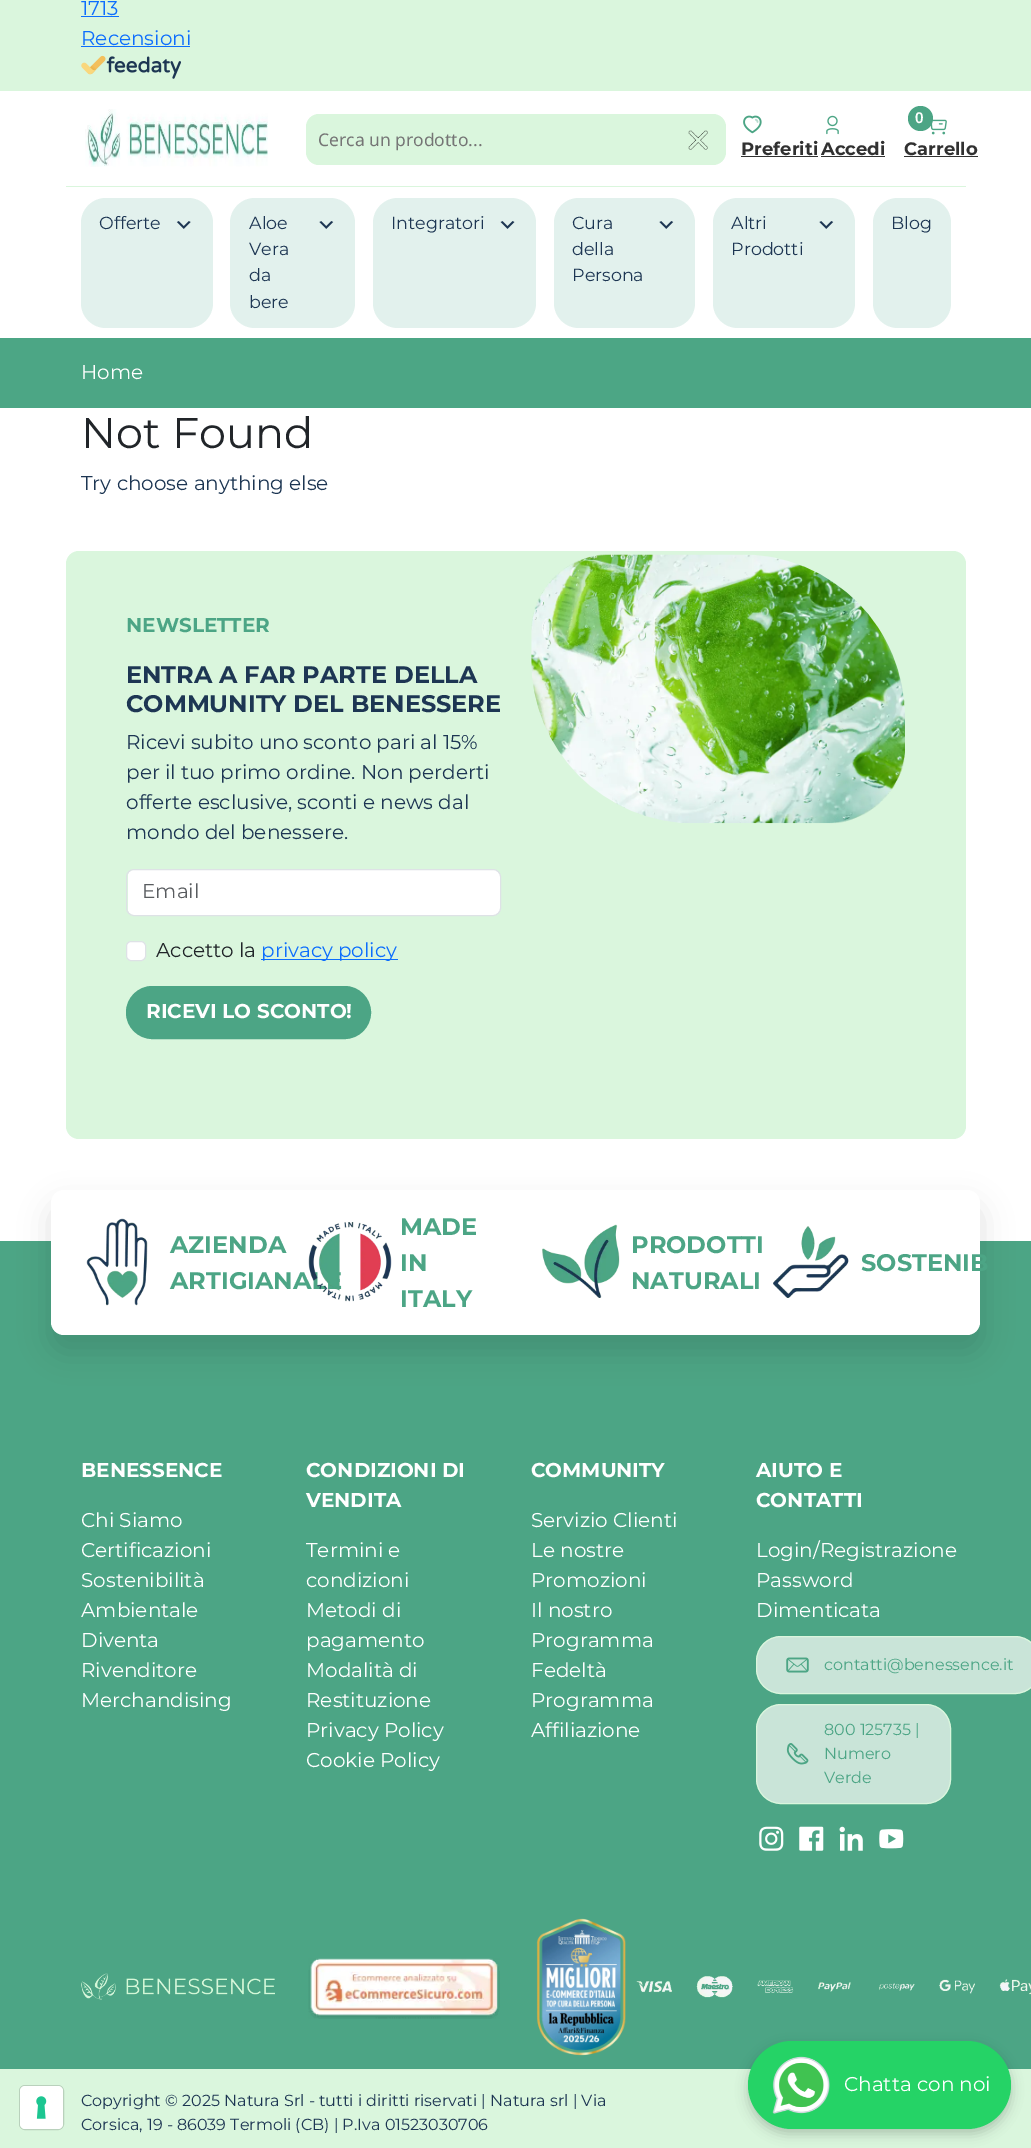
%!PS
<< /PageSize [1031 2148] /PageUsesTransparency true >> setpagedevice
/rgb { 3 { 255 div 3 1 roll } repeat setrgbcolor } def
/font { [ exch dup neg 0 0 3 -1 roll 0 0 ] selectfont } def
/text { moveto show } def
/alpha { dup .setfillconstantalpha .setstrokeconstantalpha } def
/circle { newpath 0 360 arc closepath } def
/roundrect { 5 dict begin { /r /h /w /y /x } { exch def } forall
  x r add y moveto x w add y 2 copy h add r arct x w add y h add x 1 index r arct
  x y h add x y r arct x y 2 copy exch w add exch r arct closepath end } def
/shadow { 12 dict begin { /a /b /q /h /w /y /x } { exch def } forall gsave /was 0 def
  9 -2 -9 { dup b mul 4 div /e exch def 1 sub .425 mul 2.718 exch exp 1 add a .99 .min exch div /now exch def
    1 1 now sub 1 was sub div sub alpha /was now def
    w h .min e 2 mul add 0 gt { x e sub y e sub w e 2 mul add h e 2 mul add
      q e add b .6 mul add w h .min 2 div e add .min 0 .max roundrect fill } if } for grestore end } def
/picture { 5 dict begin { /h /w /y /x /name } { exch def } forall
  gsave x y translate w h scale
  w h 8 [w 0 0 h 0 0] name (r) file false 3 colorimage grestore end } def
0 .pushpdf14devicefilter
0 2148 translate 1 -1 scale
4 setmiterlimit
255 255 255 rgb
0 0 1031 2148 rectfill
218 246 221 rgb
0 0 1031 91 rectfill
13 110 253 rgb
81 16 38 1 rectfill
81 46 109 1 rectfill
(img_01.rgb) 81 55 100 24 picture
218 246 221 rgb
66 186 900 1 rectfill
(img_02.rgb) 85 109 183 58 picture
306 114 420 51 13 roundrect fill
(img_03.rgb) 688 130 20 20 picture
(img_04.rgb) 743 115 19 19 picture
49 49 49 rgb
741 156 77 1 rectfill
(img_05.rgb) 826 115 13 20 picture
821 156 64 1 rectfill
(img_06.rgb) 930 119 17 16 picture
76 165 133 rgb
920.5 118.5 12.5 circle fill
49 49 49 rgb
904 156 74 1 rectfill
226 241 237 rgb
81 198 132 130 25 roundrect fill
(img_07.rgb) 176 221 15 8 picture
230 198 125 130 25 roundrect fill
(img_08.rgb) 319 221 15 8 picture
373 198 163 130 25 roundrect fill
(img_09.rgb) 500 221 15 8 picture
554 198 141 130 25 roundrect fill
(img_08.rgb) 659 221 15 8 picture
713 198 142 130 25 roundrect fill
(img_08.rgb) 819 221 15 8 picture
873 198 78 130 25 roundrect fill
76 166 133 rgb
0 338 1031 70 rectfill
218 246 221 rgb
0 2069 1031 79 rectfill
185 209 188 rgb
19.5 2085.5 44 44 5.5 roundrect stroke
255 255 255 rgb
20 2086 43 43 5 roundrect fill
(img_10.rgb) 36 2096 11 23 picture
218 246 221 rgb
66 551 900 588 13 roundrect fill
255 255 255 rgb
128 870 372 45 6 roundrect fill
222 226 230 rgb
126.5 869.5 374 46 7.5 roundrect stroke
255 255 255 rgb
126.5 941.5 19 19 4.5 roundrect gsave fill grestore
222 226 230 rgb
stroke
13 110 253 rgb
261 959 137 1 rectfill
76 165 133 rgb
126.5 986.5 244 52 26 roundrect gsave fill grestore
stroke
(img_11.rgb) 531 554 374 270 picture
0 1241 1031 828 rectfill
0 0 0 rgb
49 1203 934 150 15 14.5 0.11 shadow
255 255 255 rgb
51 1190 929 145 13 roundrect fill
(img_12.rgb) 86 1218 62 88 picture
(img_14.rgb) 542 1224 78 74 picture
(img_15.rgb) 773 1226 76 72 picture
201 228 216 rgb
756.5 1636.5 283 57 24.5 roundrect gsave fill grestore
218 246 221 rgb
stroke
(img_16.rgb) 786 1657 23 16 picture
201 228 216 rgb
756.5 1704.5 194 99 24.5 roundrect gsave fill grestore
218 246 221 rgb
stroke
(img_17.rgb) 786 1743 23 22 picture
(img_18.rgb) 759 1826 25 25 picture
(img_19.rgb) 799 1826 25 25 picture
(img_20.rgb) 839 1826 24 25 picture
(img_21.rgb) 879 1829 25 20 picture
(img_22.rgb) 81 1973 194 27 picture
(img_23.rgb) 308 1958 192 61 picture
(img_24.rgb) 536 1918 90 138 picture
(img_25.rgb) 636 1976 395 22 picture
0 0 0 rgb
748 2046 263 88 44 6 0.2 shadow
37 211 102 rgb
748 2041 263 88 44 roundrect fill
(img_26.rgb) 772 2056 58 58 picture
/Montserrat-Regular 20 font
13 110 253 rgb
(1713) 81 15 text
(Recensioni) 81 45 text
/NotoSans-Regular 17.5 font
117 117 117 rgb
(Cerca un prodotto...) 318 146 text
/Montserrat-Bold 18 font
49 49 49 rgb
(Preferiti) 741 155 text
(Accedi) 821 155 text
/NotoSans-SemiBold 15 font
255 255 255 rgb
(0) 915 123 text
/Montserrat-Bold 18 font
49 49 49 rgb
(Carrello) 904 155 text
/Montserrat-Regular 17.5 font
29 54 83 rgb
(Offerte) 99 229 text
(Aloe) 249 229 text
(Vera) 249 255 text
(da) 249 281 text
(bere) 249 308 text
(Integratori) 391 229 text
(Cura) 572 229 text
(della) 572 255 text
(Persona) 572 281 text
(Altri) 731 229 text
(Prodotti) 731 255 text
(Blog) 891 229 text
/Montserrat-Regular 20 font
255 255 255 rgb
(Home) 81 379 text
/Montserrat-Regular 43 font
33 37 41 rgb
(Not Found) 81 448 text
/Montserrat-Regular 20 font
29 54 83 rgb
(Try choose anything else) 81 490 text
/Montserrat-Bold 20 font
76 165 133 rgb
(NEWSLETTER) 126 632 text
/Montserrat-Bold 24 font
29 54 83 rgb
(ENTRA A FAR PARTE DELLA) 126 683 text
(COMMUNITY DEL BENESSERE) 126 712 text
/Montserrat-Regular 20 font
(Ricevi subito uno sconto pari al 15%) 126 749 text
(per il tuo primo ordine. Non perderti) 126 779 text
(offerte esclusive, sconti e news dal) 126 809 text
(mondo del benessere.) 126 839 text
89 92 95 rgb
(Email) 142 898 text
33 37 41 rgb
(Accetto la) 156 957 text
13 110 253 rgb
(privacy policy) 261 957 text
/Montserrat-Bold 20 font
255 255 255 rgb
(RICEVI LO SCONTO!) 146 1018 text
/Montserrat-Bold 24 font
76 165 133 rgb
(AZIENDA) 170 1253 text
(ARTIGIANAL) 170 1289 text
(img_13.rgb) 308 1222 84 80 picture
(MADE) 400 1235 text
(IN) 400 1271 text
(ITALY) 400 1307 text
(PRODOTTI) 631 1253 text
(NATURALI) 631 1289 text
(SOSTENIB) 861 1271 text
/Montserrat-Bold 20 font
255 255 255 rgb
(BENESSENCE) 81 1477 text
/Montserrat-Regular 20 font
(Chi Siamo) 81 1527 text
(Certificazioni) 81 1557 text
(Sostenibilità) 81 1587 text
(Ambientale) 81 1617 text
(Diventa) 81 1647 text
(Rivenditore) 81 1677 text
(Merchandising) 81 1707 text
/Montserrat-Bold 20 font
(CONDIZIONI DI) 306 1477 text
(VENDITA) 306 1507 text
/Montserrat-Regular 20 font
(Termini e) 306 1557 text
(condizioni) 306 1587 text
(Metodi di) 306 1617 text
(pagamento) 306 1647 text
(Modalità di) 306 1677 text
(Restituzione) 306 1707 text
(Privacy Policy) 306 1737 text
(Cookie Policy) 306 1767 text
/Montserrat-Bold 20 font
(COMMUNITY) 531 1477 text
/Montserrat-Regular 20 font
(Servizio Clienti) 531 1527 text
(Le nostre) 531 1557 text
(Promozioni) 531 1587 text
(Il nostro) 531 1617 text
(Programma) 531 1647 text
(Fedeltà) 531 1677 text
(Programma) 531 1707 text
(Affiliazione) 531 1737 text
/Montserrat-Bold 20 font
(AIUTO E) 756 1477 text
(CONTATTI) 756 1507 text
/Montserrat-Regular 20 font
(Login/Registrazione) 756 1557 text
(Password) 756 1587 text
(Dimenticata) 756 1617 text
/Montserrat-Regular 16 font
76 165 133 rgb
(contatti@benessence.it) 824 1670 text
(800 125735 |) 824 1735 text
(Numero) 824 1759 text
(Verde) 824 1783 text
/Montserrat-Regular 20 font
255 255 255 rgb
(Chatta con noi) 844 2091 text
/Montserrat-Regular 16 font
29 54 83 rgb
(Copyright © 2025 Natura Srl - tutti i diritti riservati | Natura srl | Via) 81 2106 text
(Corsica, 19 - 86039 Termoli \(CB\) | P.Iva 01523030706) 81 2130 text
.poppdf14devicefilter showpage
